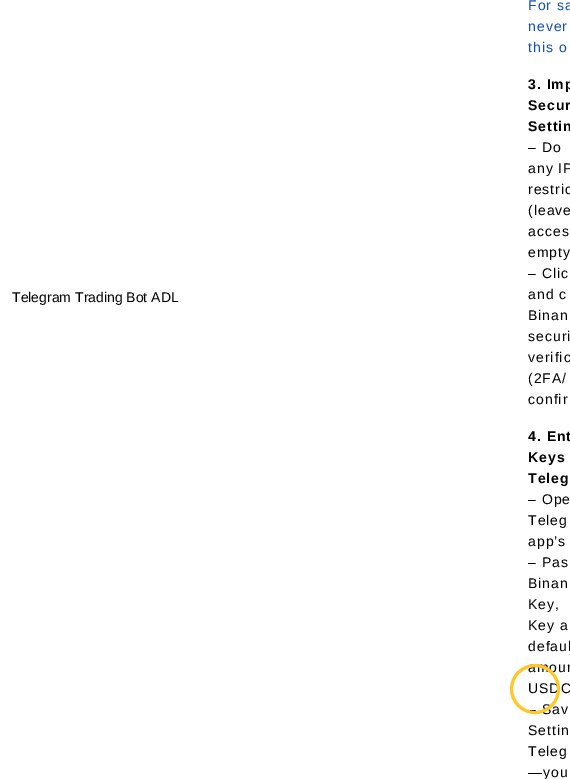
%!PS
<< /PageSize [570 779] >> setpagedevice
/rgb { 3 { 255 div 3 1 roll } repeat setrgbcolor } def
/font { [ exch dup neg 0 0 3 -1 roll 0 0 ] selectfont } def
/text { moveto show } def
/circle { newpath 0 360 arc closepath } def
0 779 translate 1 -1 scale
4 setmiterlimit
255 255 255 rgb
0 0 570 779 rectfill
/LiberationSans-Regular 14 font
0 0 0 rgb
(Telegram Trading Bot ADL) 12 302 text
17 79 178 rgb
528 10 moveto 1 0 (For sa) ashow
528 31 moveto 1 0 (never) ashow
528 52 moveto 1 0 (this o) ashow
/LiberationSans-Bold 14 font
0 0 0 rgb
528 89 moveto 1 0 (3. Imp) ashow
528 110 moveto 1 0 (Secur) ashow
528 131 moveto 1 0 (Settin) ashow
/LiberationSans-Regular 14 font
528 152 moveto 1 0 (– Do) ashow
528 173 moveto 1 0 (any IP) ashow
528 194 moveto 1 0 (restric) ashow
528 215 moveto 1 0 (\(leave) ashow
528 236 moveto 1 0 (acces) ashow
528 257 moveto 1 0 (empty) ashow
528 278 moveto 1 0 (– Clic) ashow
528 299 moveto 1 0 (and c) ashow
528 320 moveto 1 0 (Binan) ashow
528 341 moveto 1 0 (securi) ashow
528 362 moveto 1 0 (verific) ashow
528 383 moveto 1 0 (\(2FA/) ashow
528 404 moveto 1 0 (confir) ashow
/LiberationSans-Bold 14 font
528 441 moveto 1 0 (4. Ent) ashow
528 462 moveto 1 0 (Keys) ashow
528 483 moveto 1 0 (Teleg) ashow
/LiberationSans-Regular 14 font
528 504 moveto 1 0 (– Ope) ashow
528 525 moveto 1 0 (Teleg) ashow
528 546 moveto 1 0 (app’s) ashow
528 567 moveto 1 0 (– Pas) ashow
528 588 moveto 1 0 (Binan) ashow
528 609 moveto 1 0 (Key,) ashow
528 630 moveto 1 0 (Key a) ashow
528 651 moveto 1 0 (defaul) ashow
528 672 moveto 1 0 (amoun) ashow
528 693 moveto 1 0 (USDC) ashow
528 714 moveto 1 0 (– Sav) ashow
528 735 moveto 1 0 (Settin) ashow
528 756 moveto 1 0 (Teleg) ashow
528 777 moveto 1 0 (—you) ashow
255 200 38 rgb
3 setlinewidth
535 689 23.5 circle stroke
showpage
